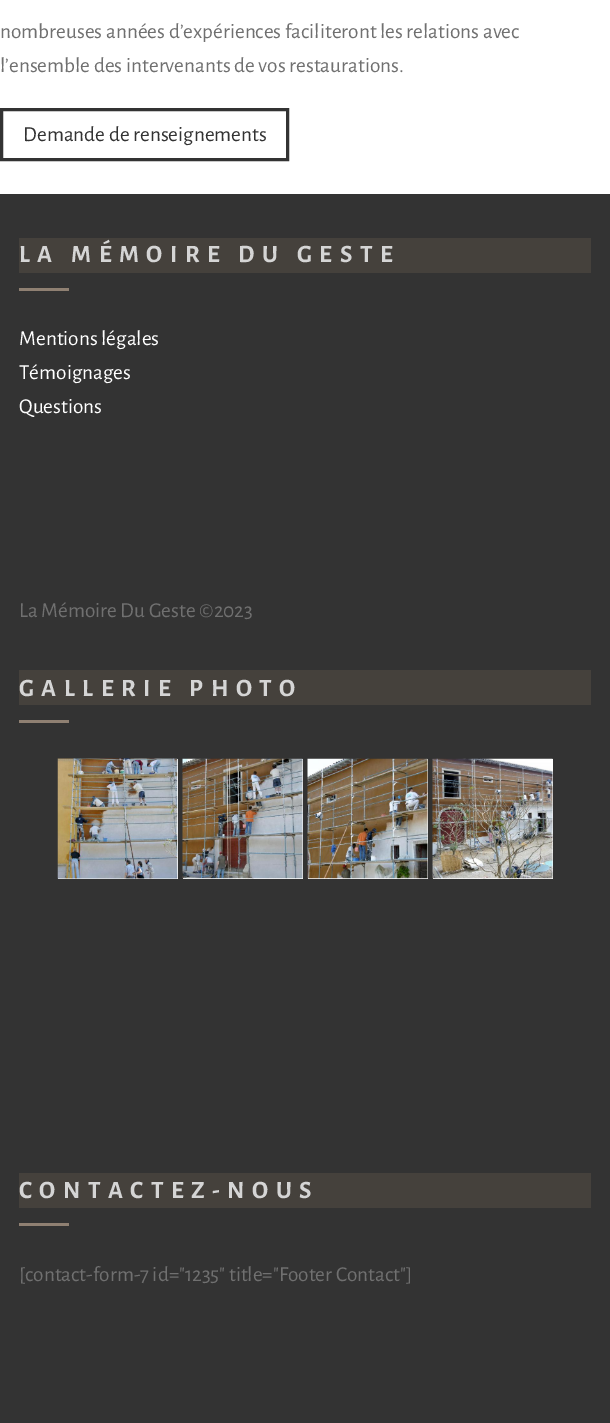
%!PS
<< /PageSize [610 1423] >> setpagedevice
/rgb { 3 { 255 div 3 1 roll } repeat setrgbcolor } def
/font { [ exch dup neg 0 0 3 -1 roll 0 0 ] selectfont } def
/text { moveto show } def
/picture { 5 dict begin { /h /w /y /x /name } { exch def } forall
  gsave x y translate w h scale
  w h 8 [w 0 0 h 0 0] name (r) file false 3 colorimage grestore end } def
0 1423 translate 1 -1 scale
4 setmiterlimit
255 255 255 rgb
0 0 610 1423 rectfill
51 51 51 rgb
3 setlinewidth
1.5 109.5 286 50 rectstroke
0 194 610 1229 rectfill
69 65 60 rgb
19 238 572 35 rectfill
143 128 114 rgb
19 288 50 3 rectfill
69 65 60 rgb
19 670 572 35 rectfill
143 128 114 rgb
19 720 50 3 rectfill
255 255 255 rgb
58 759 120 120 rectfill
(img_01.rgb) 57 758 121 121 picture
183 759 120 120 rectfill
(img_02.rgb) 182 758 121 121 picture
308 759 120 120 rectfill
(img_03.rgb) 307 758 121 121 picture
433 759 120 120 rectfill
(img_04.rgb) 432 758 121 121 picture
69 65 60 rgb
19 1173 572 35 rectfill
143 128 114 rgb
19 1223 50 3 rectfill
/AlegreyaSans-Regular 21.25 font
112 112 112 rgb
(nombreuses années d’expériences faciliteront les relations avec) 0 38 text
(l’ensemble des intervenants de vos restaurations.) 0 72 text
51 51 51 rgb
(Demande de renseignements) 23 141 text
/AlegreyaSans-Bold 25 font
213 213 213 rgb
19 262 moveto 7.5 0 (LA MÉMOIRE DU GESTE) ashow
/AlegreyaSans-Regular 21.25 font
255 255 255 rgb
(Mentions légales) 19 345 text
(Témoignages) 19 379 text
(Questions) 19 413 text
112 112 112 rgb
(La Mémoire Du Geste ©2023) 19 617 text
/AlegreyaSans-Bold 25 font
213 213 213 rgb
19 696 moveto 7.5 0 (GALLERIE PHOTO) ashow
19 1198 moveto 7.5 0 (CONTACTEZ-NOUS) ashow
/AlegreyaSans-Regular 21.25 font
112 112 112 rgb
([contact-form-7 id="1235" title="Footer Contact"]) 19 1281 text
showpage
